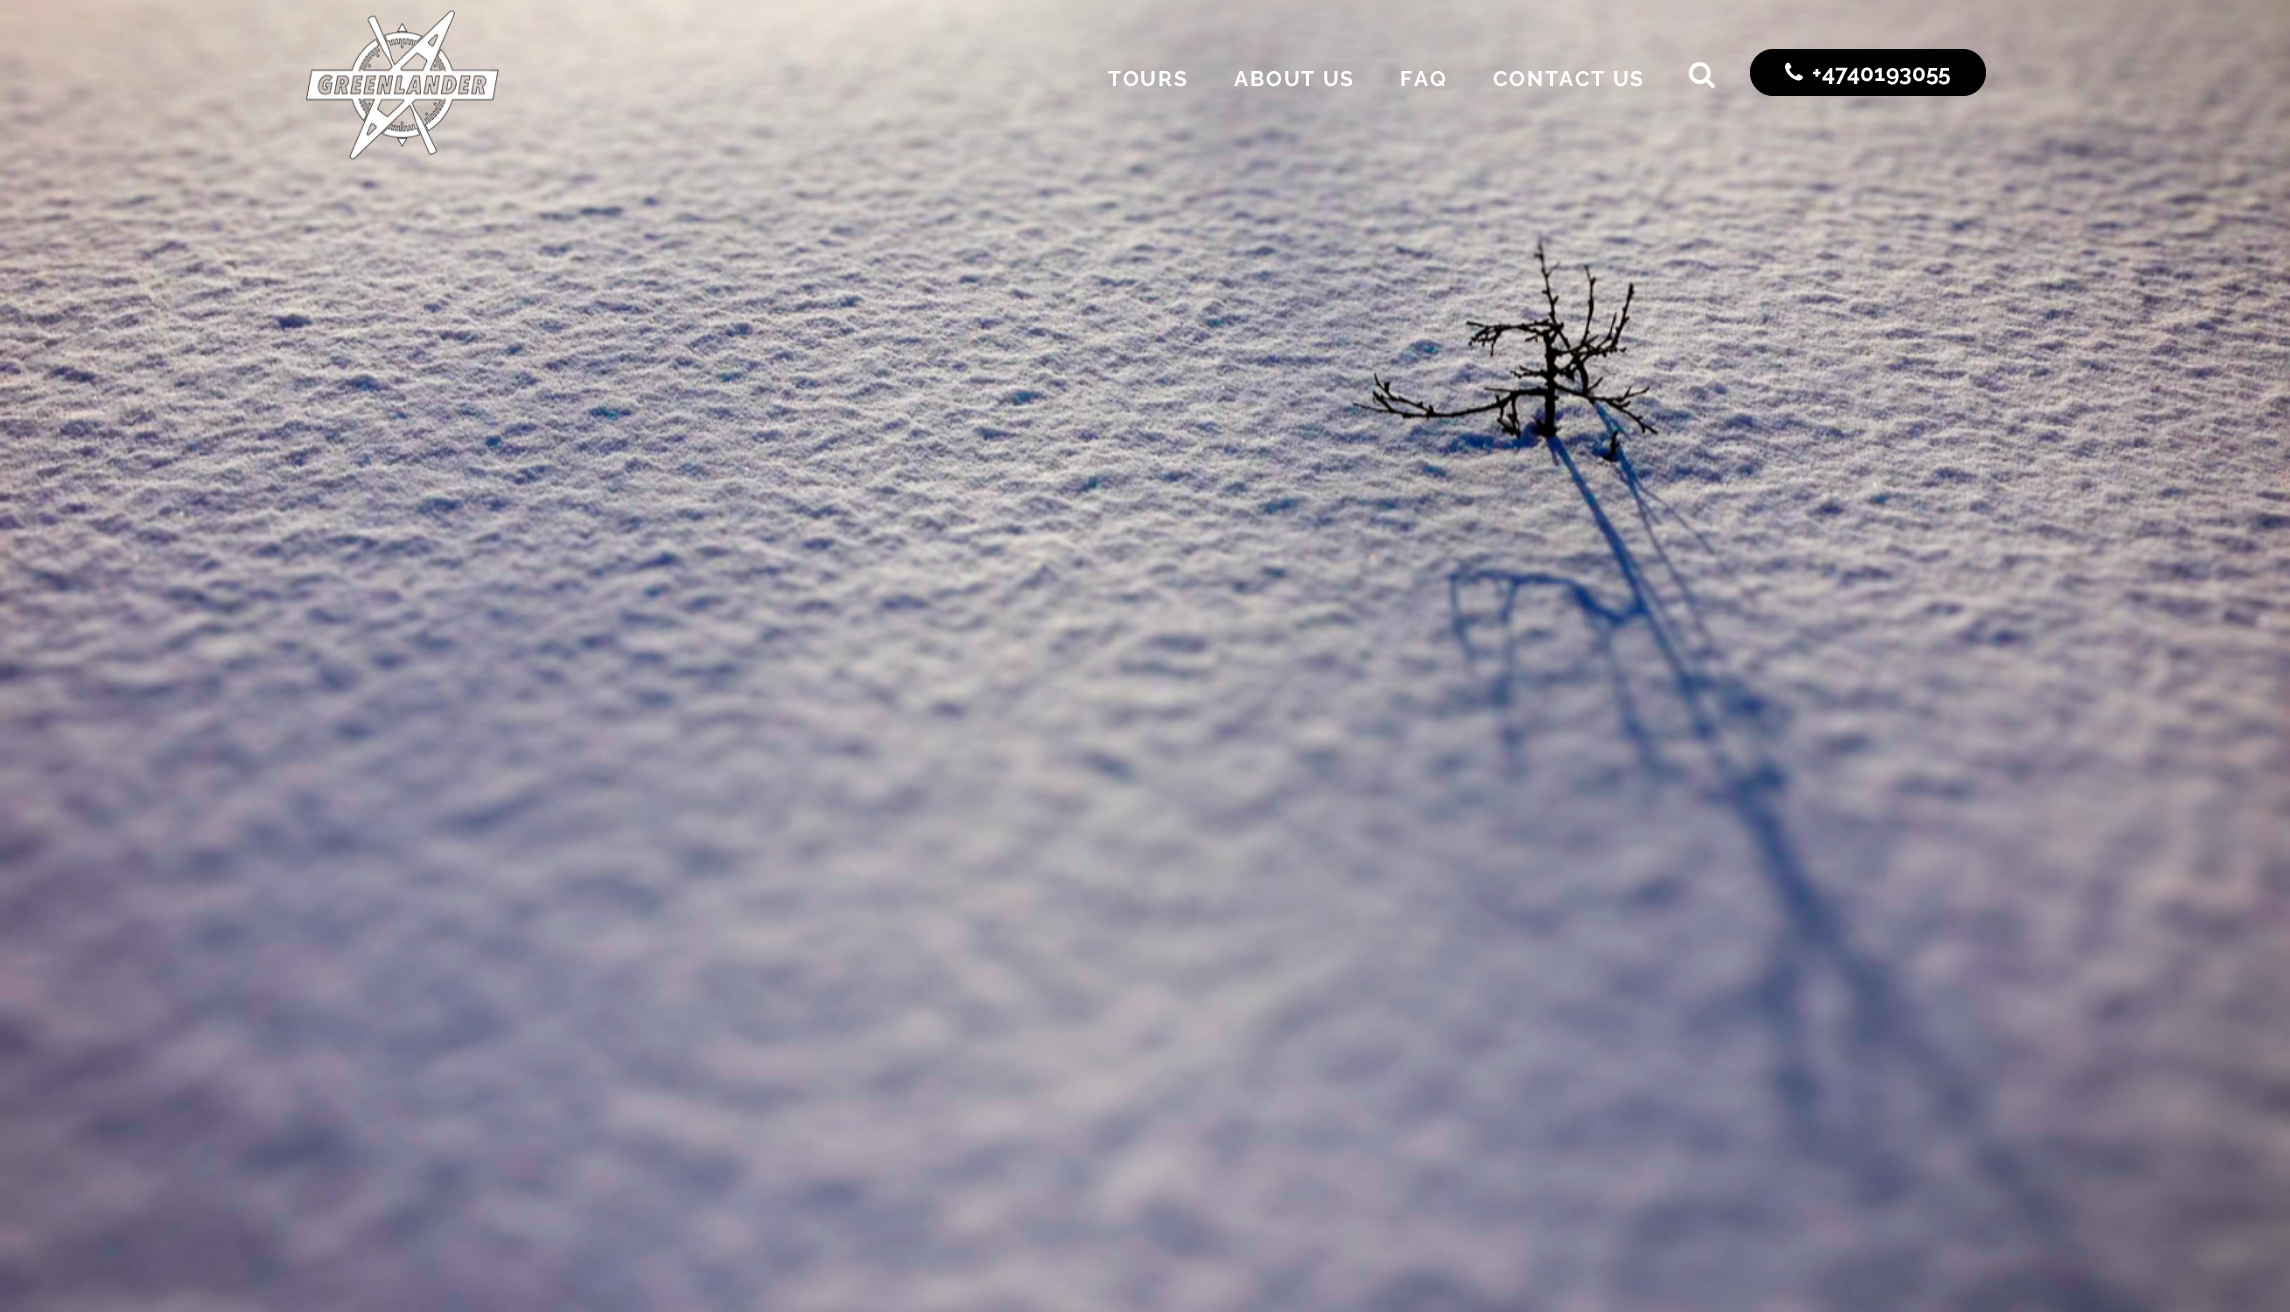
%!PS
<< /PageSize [2290 1312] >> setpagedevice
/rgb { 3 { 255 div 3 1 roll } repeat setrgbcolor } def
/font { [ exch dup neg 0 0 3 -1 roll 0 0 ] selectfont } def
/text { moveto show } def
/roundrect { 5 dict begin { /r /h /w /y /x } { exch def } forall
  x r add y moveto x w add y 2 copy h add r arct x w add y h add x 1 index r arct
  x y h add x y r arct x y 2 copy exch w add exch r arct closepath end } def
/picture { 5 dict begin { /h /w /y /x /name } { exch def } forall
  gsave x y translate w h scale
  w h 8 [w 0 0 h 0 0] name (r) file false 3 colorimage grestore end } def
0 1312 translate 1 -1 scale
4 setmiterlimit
255 255 255 rgb
0 0 2290 1312 rectfill
(img_01.rgb) 0 0 2290 1312 picture
(img_02.rgb) 306 10 193 150 picture
(img_03.rgb) 1688 62 27 26 picture
0 0 0 rgb
1750 49 236 47 23.5 roundrect fill
(img_04.rgb) 1785 62 18 19 picture
/Raleway-Bold 21 font
255 255 255 rgb
1108 86 moveto 1.75 0 (TOURS) ashow
1234 86 moveto 1.75 0 (ABOUT US) ashow
1400 86 moveto 1.75 0 (FAQ) ashow
1493 86 moveto 1.75 0 (CONTACT US) ashow
/Raleway-Bold 22.75 font
(+4740193055) 1812 81 text
showpage
